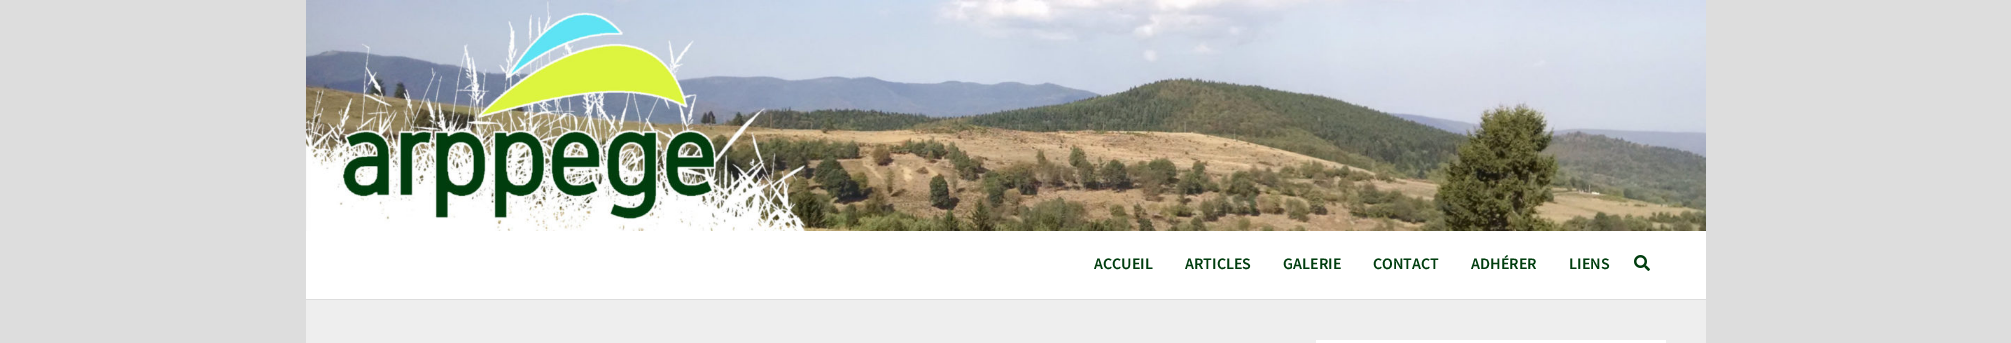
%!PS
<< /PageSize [2011 343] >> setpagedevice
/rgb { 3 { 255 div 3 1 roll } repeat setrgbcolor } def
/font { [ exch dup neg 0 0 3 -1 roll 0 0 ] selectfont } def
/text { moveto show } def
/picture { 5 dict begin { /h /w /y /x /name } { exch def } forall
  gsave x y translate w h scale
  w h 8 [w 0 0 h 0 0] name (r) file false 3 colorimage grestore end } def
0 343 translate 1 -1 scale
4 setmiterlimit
221 221 221 rgb
0 0 2011 343 rectfill
255 255 255 rgb
306 231 1400 68 rectfill
(img_01.rgb) 306 0 1400 231 picture
(img_02.rgb) 1634 255 16 16 picture
238 238 238 rgb
306 300 1400 43 rectfill
255 255 255 rgb
1316 340 350 3 rectfill
/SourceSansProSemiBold-SemiBold 16 font
0 61 14 rgb
(ACCUEIL) 1094 269 text
(ARTICLES) 1185 269 text
(GALERIE) 1283 269 text
(CONTACT) 1373 269 text
(ADHÉRER) 1471 269 text
(LIENS) 1569 269 text
showpage
